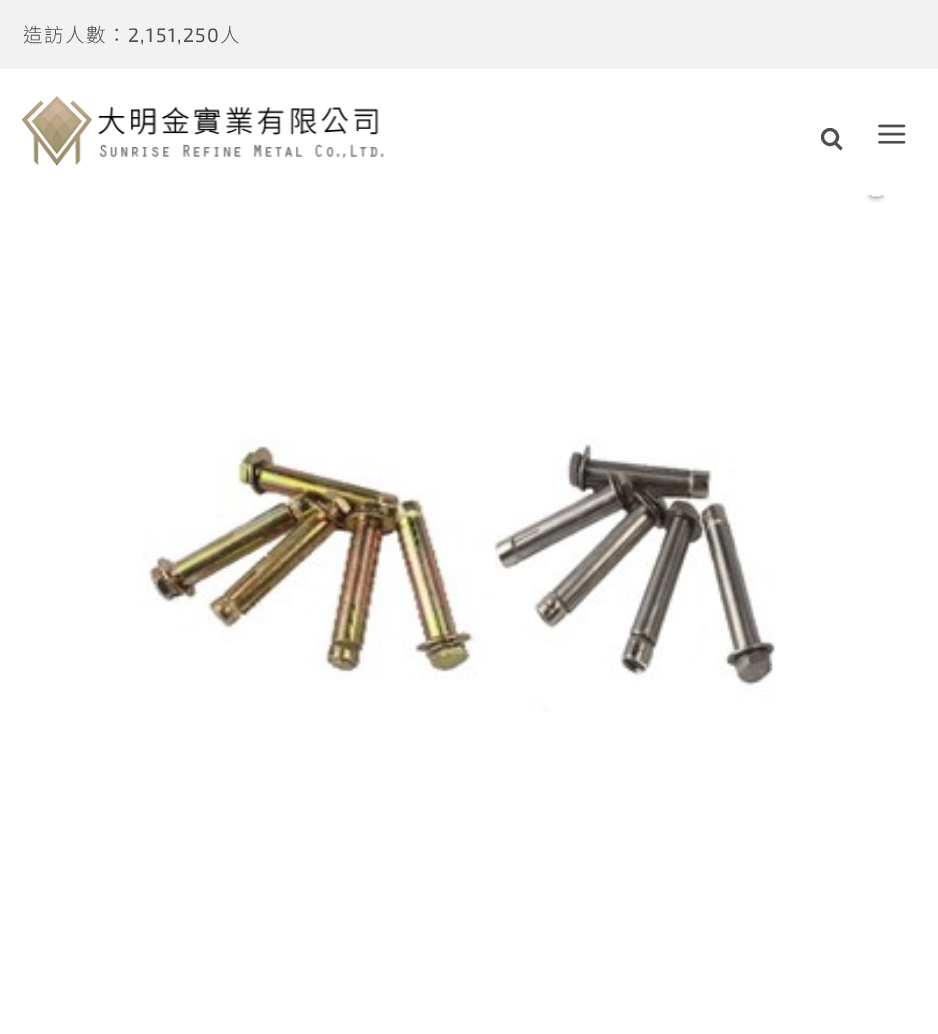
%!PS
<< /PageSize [938 1034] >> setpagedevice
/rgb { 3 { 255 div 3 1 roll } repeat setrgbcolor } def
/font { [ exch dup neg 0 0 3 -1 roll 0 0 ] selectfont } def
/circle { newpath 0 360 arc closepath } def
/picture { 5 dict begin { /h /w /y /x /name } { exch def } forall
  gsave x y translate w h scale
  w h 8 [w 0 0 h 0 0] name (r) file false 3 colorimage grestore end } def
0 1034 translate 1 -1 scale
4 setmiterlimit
255 255 255 rgb
0 0 938 1034 rectfill
242 242 242 rgb
0 0 938 69 rectfill
(img_01.rgb) 21 95 363 72 picture
(img_02.rgb) 878 124 28 20 picture
75 78 83 rgb
3 setlinewidth
830 137 7.5 circle stroke
835 140.5 moveto 7.5 7.5 rlineto -2 2.5 rlineto -7.5 -7.5 rlineto closepath fill
(img_03.rgb) 865 195 21 8 picture
(img_04.rgb) 142 438 633 274 picture
/NotoSansTC-Light 19.5 font
23 42 moveto 1.5 0 (造訪人數：) ashow
/Exo2-Regular 19.5 font
128 42 moveto 1.5 0 (2,151,250) ashow
/NotoSansTC-Light 19.5 font
220 42 moveto 1.5 0 (人) ashow
showpage
